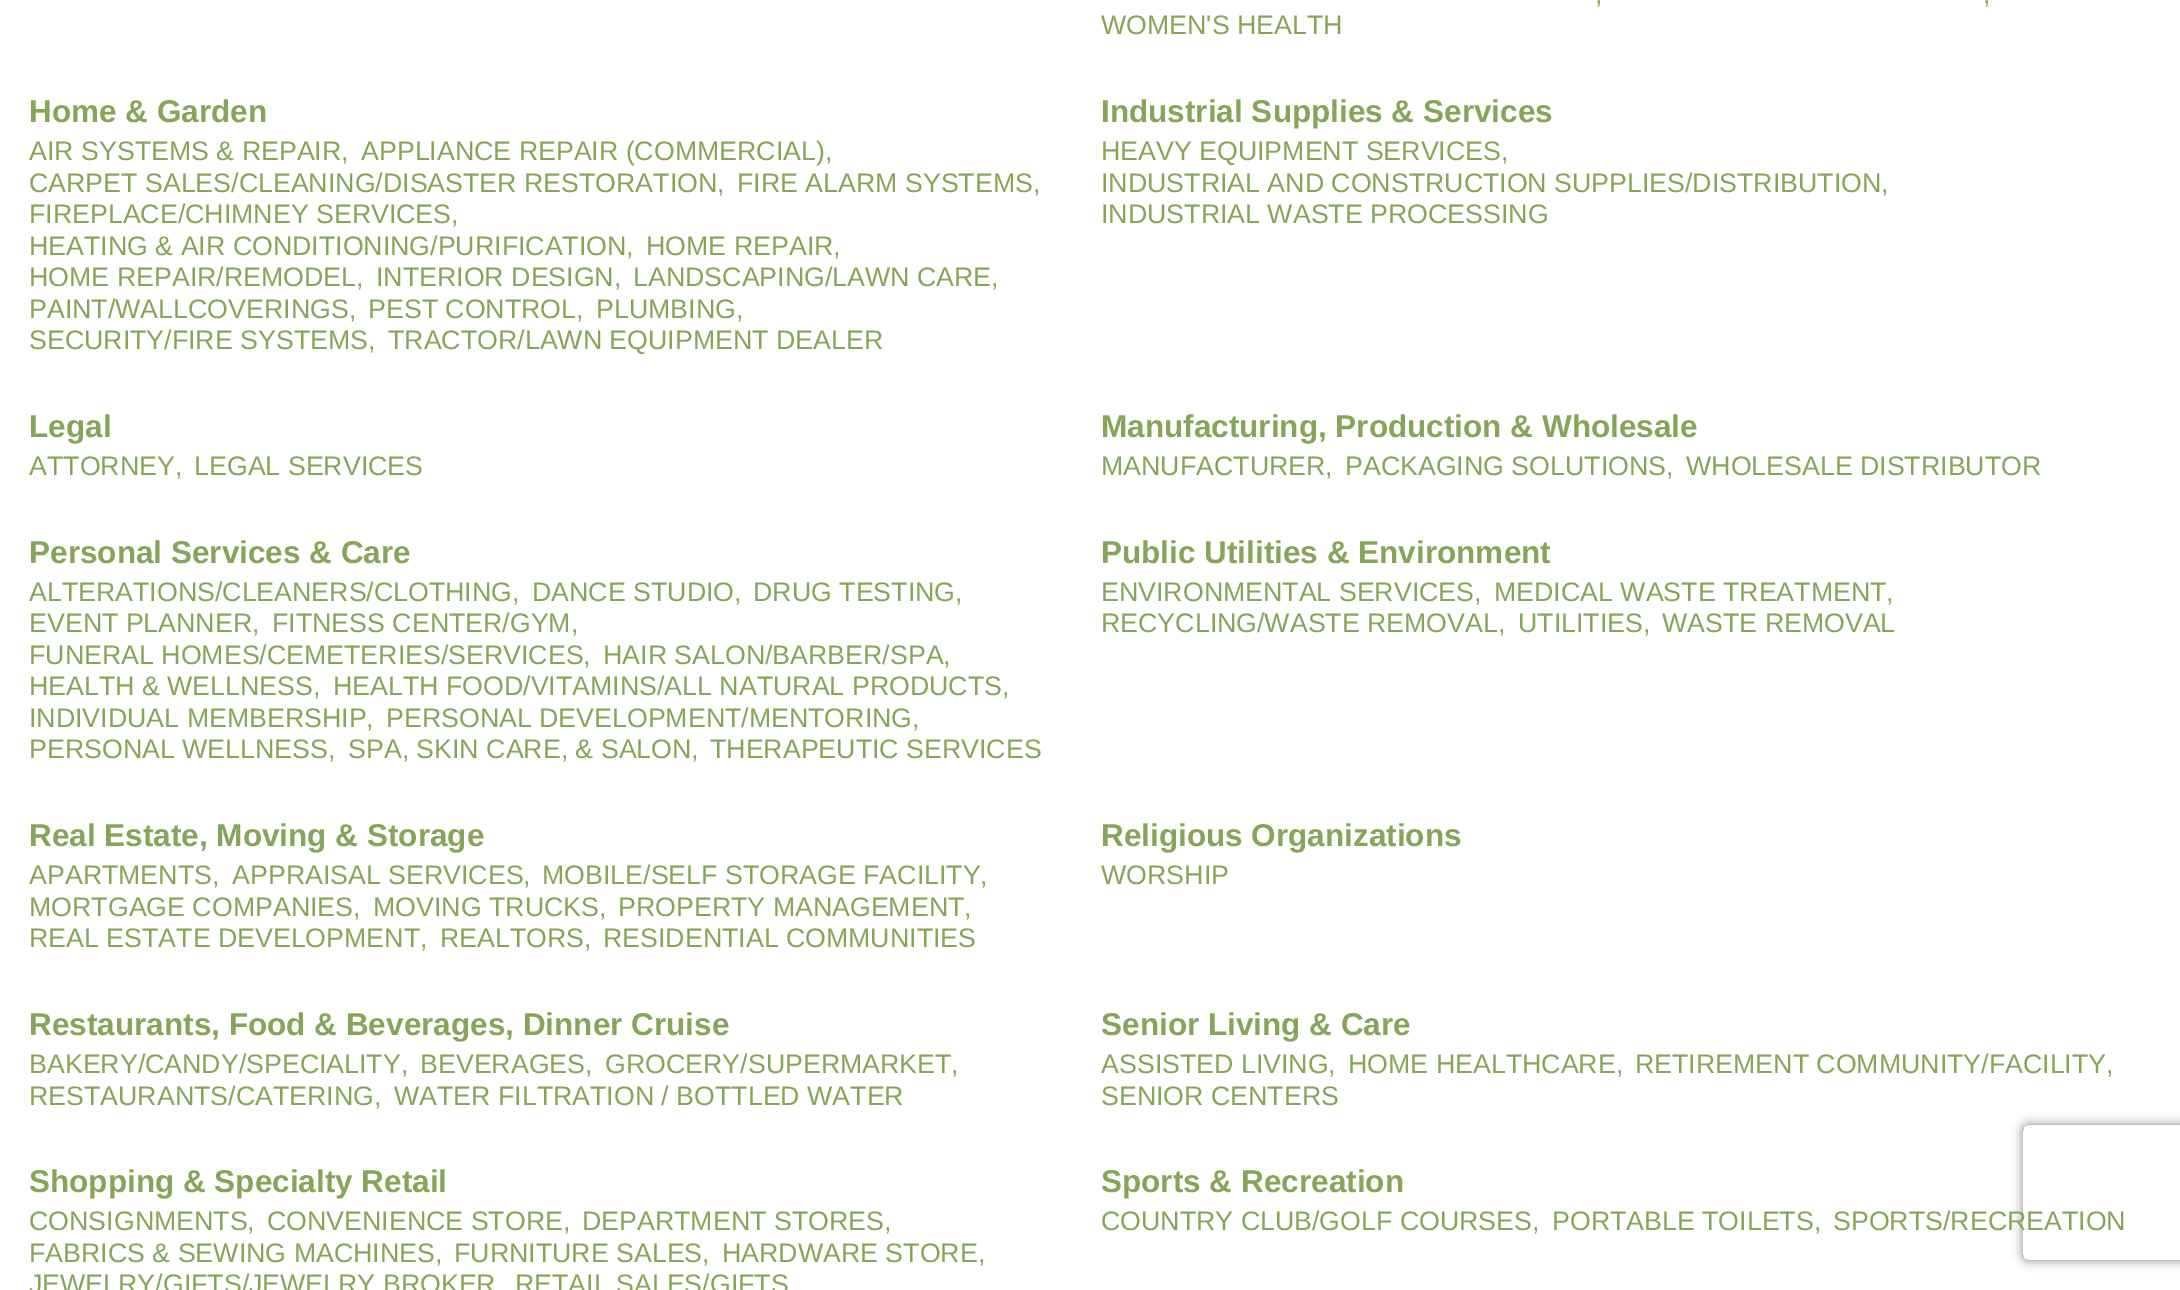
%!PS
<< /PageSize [2180 1290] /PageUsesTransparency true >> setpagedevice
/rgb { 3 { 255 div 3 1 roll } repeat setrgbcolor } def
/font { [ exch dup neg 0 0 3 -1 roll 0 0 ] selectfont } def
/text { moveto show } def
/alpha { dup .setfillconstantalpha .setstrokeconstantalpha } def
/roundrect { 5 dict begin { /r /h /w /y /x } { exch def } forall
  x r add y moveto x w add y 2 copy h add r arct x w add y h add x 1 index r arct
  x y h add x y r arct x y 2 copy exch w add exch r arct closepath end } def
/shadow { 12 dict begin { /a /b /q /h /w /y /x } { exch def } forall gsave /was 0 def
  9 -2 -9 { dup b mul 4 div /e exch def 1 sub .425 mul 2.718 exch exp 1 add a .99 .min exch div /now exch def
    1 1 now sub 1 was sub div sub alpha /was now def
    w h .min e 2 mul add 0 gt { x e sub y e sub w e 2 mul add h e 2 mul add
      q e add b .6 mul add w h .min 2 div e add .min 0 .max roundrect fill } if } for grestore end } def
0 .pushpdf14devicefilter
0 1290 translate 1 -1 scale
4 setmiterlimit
255 255 255 rgb
0 0 2180 1290 rectfill
gsave
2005 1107 moveto 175 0 rlineto 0 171 rlineto -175 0 rlineto closepath 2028 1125 moveto 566 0 rlineto 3 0 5 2 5 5 rcurveto 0 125 rlineto 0 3 -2 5 -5 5 rcurveto -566 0 rlineto -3 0 -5 -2 -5 -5 rcurveto 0 -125 rlineto 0 -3 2 -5 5 -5 rcurveto closepath eoclip newpath
128 128 128 rgb
2023 1125 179 135 5 5.5 1 shadow
grestore
/LiberationSans-Regular 26.75 font
134 165 89 rgb
(,) 1595 3 text
(,) 1983 3 text
(WOMEN'S HEALTH) 1101 34 text
/LiberationSans-Bold 31.5 font
(Home & Garden) 29 122 text
/LiberationSans-Regular 26.75 font
(AIR SYSTEMS & REPAIR,) 29 160 text
(APPLIANCE REPAIR \(COMMERCIAL\),) 361 160 text
(CARPET SALES/CLEANING/DISASTER RESTORATION,) 29 192 text
(FIRE ALARM SYSTEMS,) 737 192 text
(FIREPLACE/CHIMNEY SERVICES,) 29 223 text
(HEATING & AIR CONDITIONING/PURIFICATION,) 29 255 text
(HOME REPAIR,) 646 255 text
(HOME REPAIR/REMODEL,) 29 286 text
(INTERIOR DESIGN,) 376 286 text
(LANDSCAPING/LAWN CARE,) 633 286 text
(PAINT/WALLCOVERINGS,) 29 318 text
(PEST CONTROL,) 368 318 text
(PLUMBING,) 596 318 text
(SECURITY/FIRE SYSTEMS,) 29 349 text
(TRACTOR/LAWN EQUIPMENT DEALER) 388 349 text
/LiberationSans-Bold 31.5 font
(Industrial Supplies & Services) 1101 122 text
/LiberationSans-Regular 26.75 font
(HEAVY EQUIPMENT SERVICES,) 1101 160 text
(INDUSTRIAL AND CONSTRUCTION SUPPLIES/DISTRIBUTION,) 1101 192 text
(INDUSTRIAL WASTE PROCESSING) 1101 223 text
/LiberationSans-Bold 31.5 font
(Legal) 29 437 text
/LiberationSans-Regular 26.75 font
(ATTORNEY,) 29 475 text
(LEGAL SERVICES) 194 475 text
/LiberationSans-Bold 31.5 font
(Manufacturing, Production & Wholesale) 1101 437 text
/LiberationSans-Regular 26.75 font
(MANUFACTURER,) 1101 475 text
(PACKAGING SOLUTIONS,) 1345 475 text
(WHOLESALE DISTRIBUTOR) 1686 475 text
/LiberationSans-Bold 31.5 font
(Personal Services & Care) 29 563 text
/LiberationSans-Regular 26.75 font
(ALTERATIONS/CLEANERS/CLOTHING,) 29 601 text
(DANCE STUDIO,) 532 601 text
(DRUG TESTING,) 753 601 text
(EVENT PLANNER,) 29 632 text
(FITNESS CENTER/GYM,) 272 632 text
(FUNERAL HOMES/CEMETERIES/SERVICES,) 29 664 text
(HAIR SALON/BARBER/SPA,) 603 664 text
(HEALTH & WELLNESS,) 29 695 text
(HEALTH FOOD/VITAMINS/ALL NATURAL PRODUCTS,) 333 695 text
(INDIVIDUAL MEMBERSHIP,) 29 727 text
(PERSONAL DEVELOPMENT/MENTORING,) 386 727 text
(PERSONAL WELLNESS,) 29 758 text
(SPA, SKIN CARE, & SALON,) 348 758 text
(THERAPEUTIC SERVICES) 710 758 text
/LiberationSans-Bold 31.5 font
(Public Utilities & Environment) 1101 563 text
/LiberationSans-Regular 26.75 font
(ENVIRONMENTAL SERVICES,) 1101 601 text
(MEDICAL WASTE TREATMENT,) 1494 601 text
(RECYCLING/WASTE REMOVAL,) 1101 632 text
(UTILITIES,) 1518 632 text
(WASTE REMOVAL) 1662 632 text
/LiberationSans-Bold 31.5 font
(Real Estate, Moving & Storage) 29 846 text
/LiberationSans-Regular 26.75 font
(APARTMENTS,) 29 884 text
(APPRAISAL SERVICES,) 232 884 text
(MOBILE/SELF STORAGE FACILITY,) 542 884 text
(MORTGAGE COMPANIES,) 29 916 text
(MOVING TRUCKS,) 373 916 text
(PROPERTY MANAGEMENT,) 618 916 text
(REAL ESTATE DEVELOPMENT,) 29 947 text
(REALTORS,) 440 947 text
(RESIDENTIAL COMMUNITIES) 603 947 text
/LiberationSans-Bold 31.5 font
(Religious Organizations) 1101 846 text
/LiberationSans-Regular 26.75 font
(WORSHIP) 1101 884 text
/LiberationSans-Bold 31.5 font
(Restaurants, Food & Beverages, Dinner Cruise) 29 1035 text
/LiberationSans-Regular 26.75 font
(BAKERY/CANDY/SPECIALITY,) 29 1073 text
(BEVERAGES,) 420 1073 text
(GROCERY/SUPERMARKET,) 605 1073 text
(RESTAURANTS/CATERING,) 29 1105 text
(WATER FILTRATION / BOTTLED WATER) 394 1105 text
/LiberationSans-Bold 31.5 font
(Senior Living & Care) 1101 1035 text
/LiberationSans-Regular 26.75 font
(ASSISTED LIVING,) 1101 1073 text
(HOME HEALTHCARE,) 1348 1073 text
(RETIREMENT COMMUNITY/FACILITY,) 1635 1073 text
(SENIOR CENTERS) 1101 1105 text
/LiberationSans-Bold 31.5 font
(Shopping & Specialty Retail) 29 1192 text
/LiberationSans-Regular 26.75 font
(CONSIGNMENTS,) 29 1230 text
(CONVENIENCE STORE,) 267 1230 text
(DEPARTMENT STORES,) 582 1230 text
(FABRICS & SEWING MACHINES,) 29 1262 text
(FURNITURE SALES,) 454 1262 text
(HARDWARE STORE,) 722 1262 text
(JEWELRY/GIFTS/JEWELRY BROKER) 29 1293 text
(RETAIL SALES/GIFTS) 515 1293 text
/LiberationSans-Bold 31.5 font
(Sports & Recreation) 1101 1192 text
/LiberationSans-Regular 26.75 font
(COUNTRY CLUB/GOLF COURSES,) 1101 1230 text
(PORTABLE TOILETS,) 1552 1230 text
(SPORTS/RECREATION) 1833 1230 text
.poppdf14devicefilter showpage
